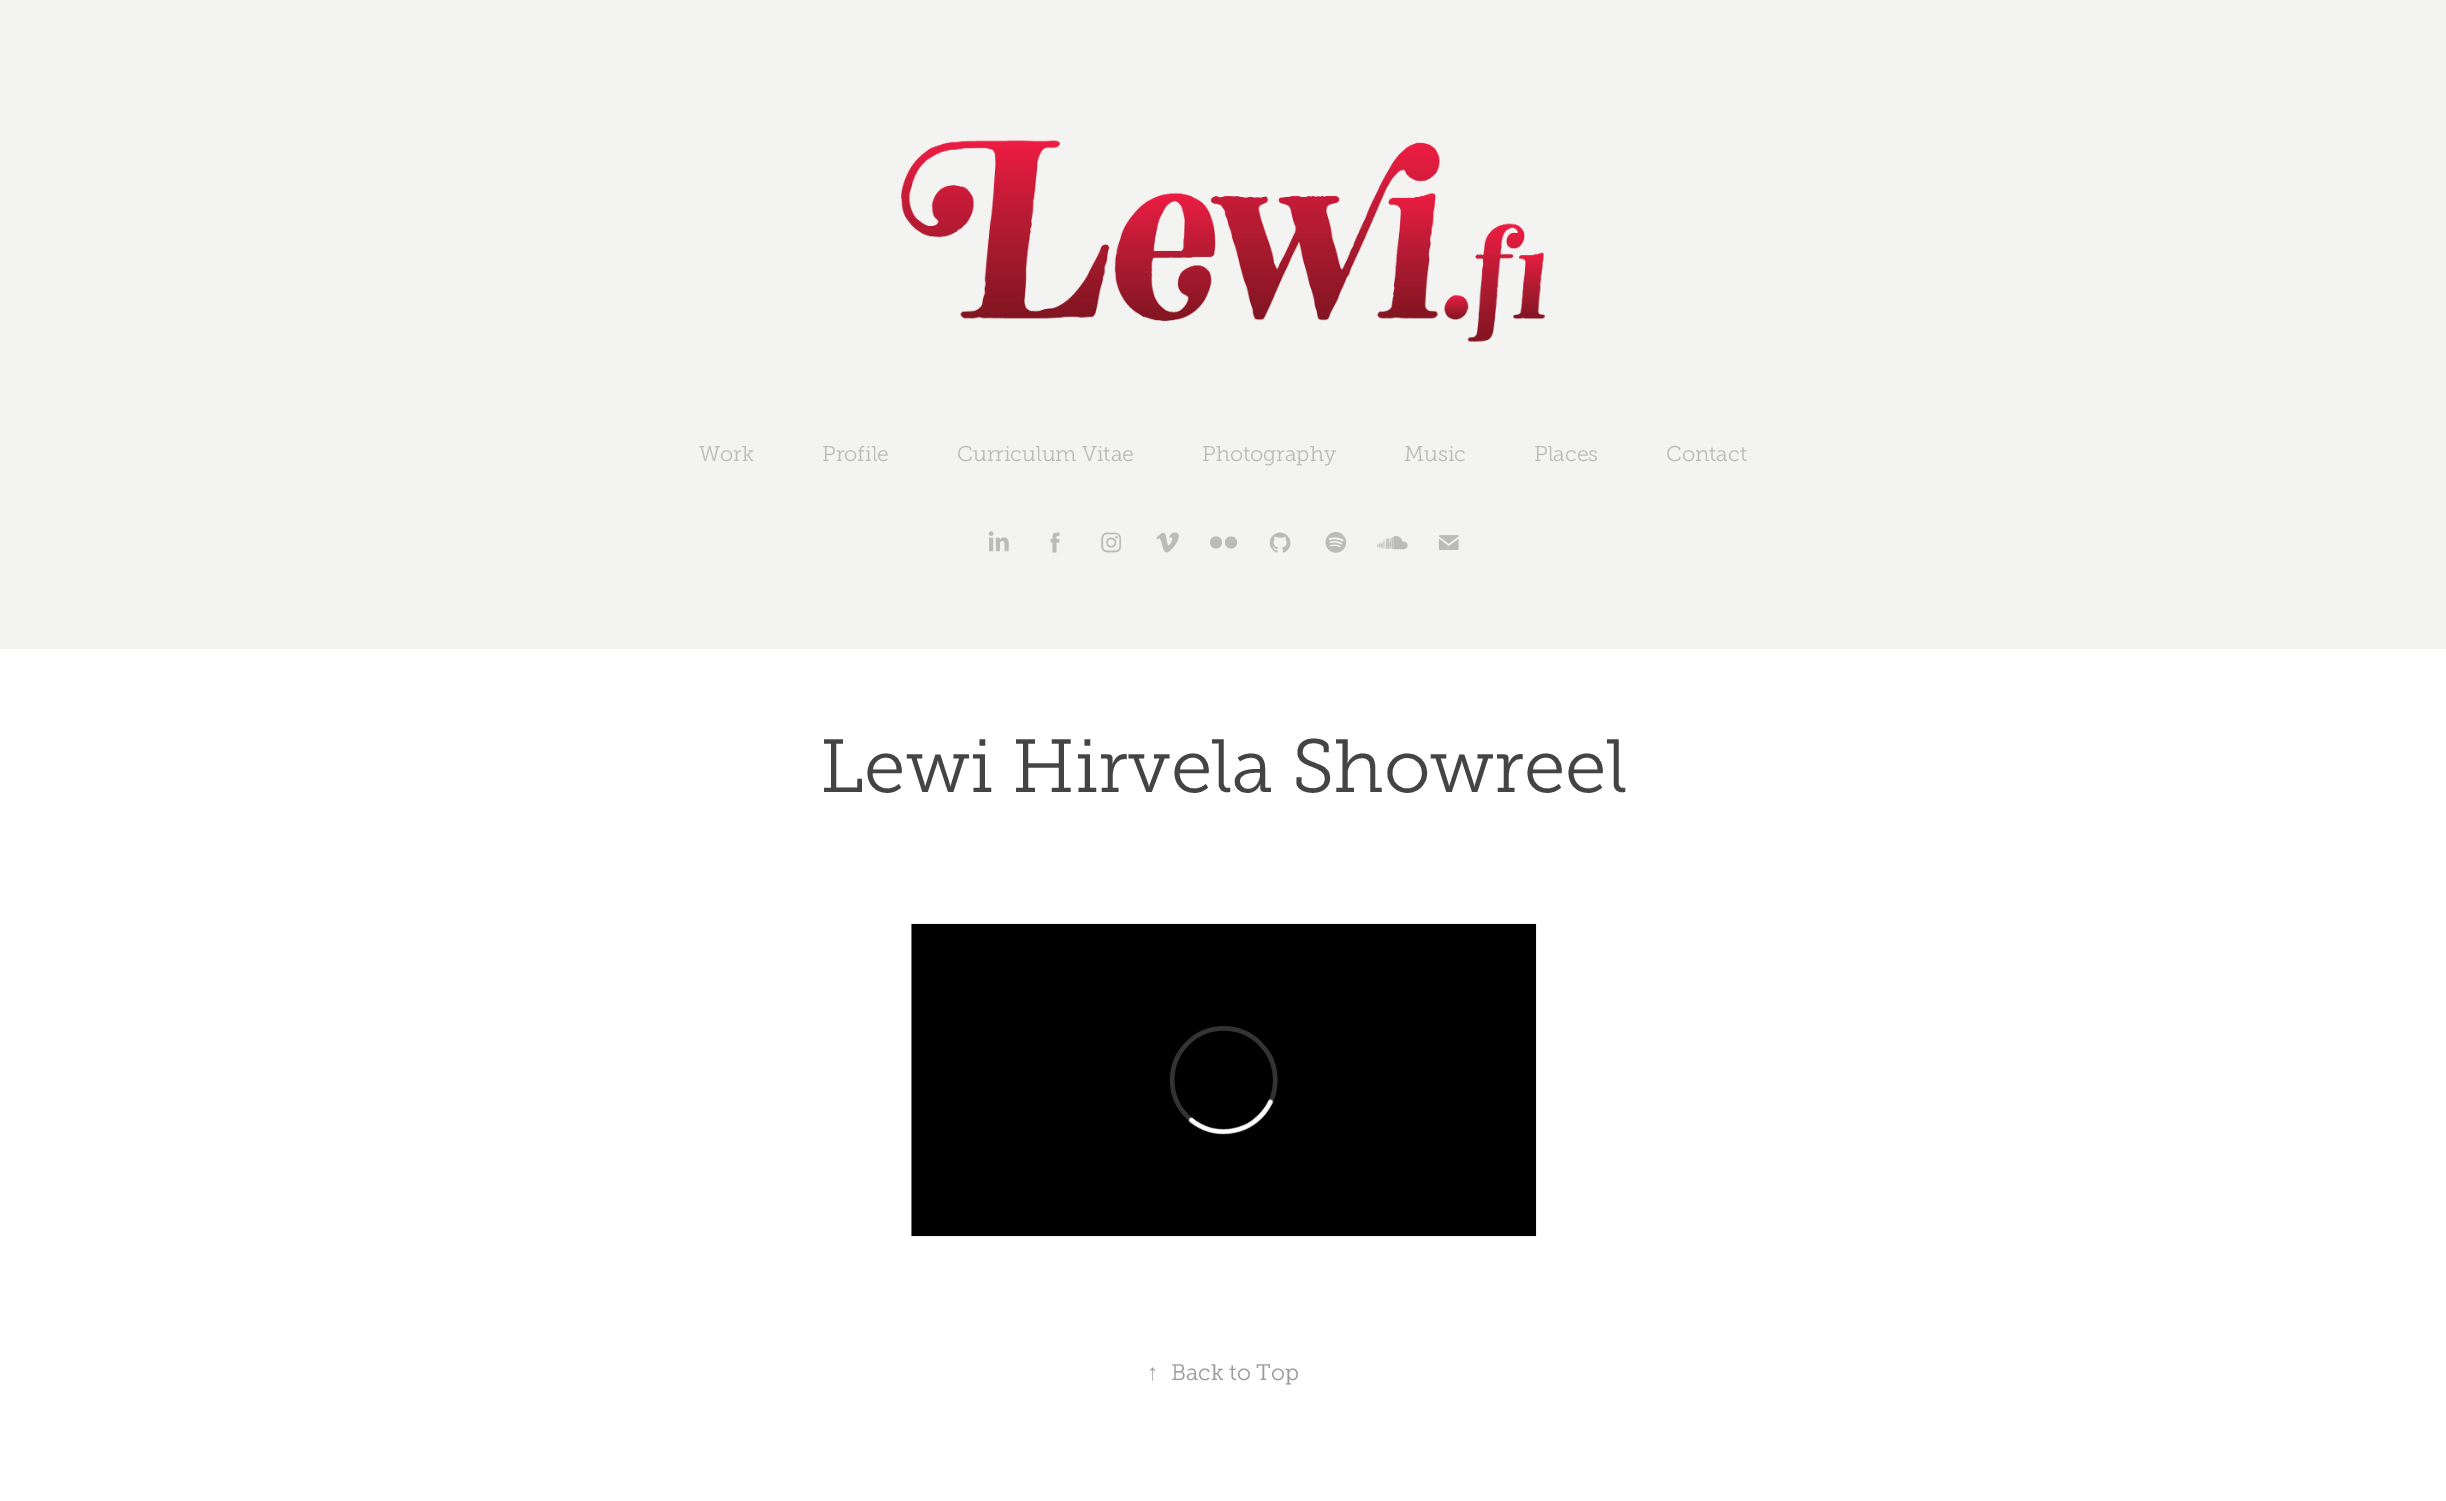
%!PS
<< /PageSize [2446 1501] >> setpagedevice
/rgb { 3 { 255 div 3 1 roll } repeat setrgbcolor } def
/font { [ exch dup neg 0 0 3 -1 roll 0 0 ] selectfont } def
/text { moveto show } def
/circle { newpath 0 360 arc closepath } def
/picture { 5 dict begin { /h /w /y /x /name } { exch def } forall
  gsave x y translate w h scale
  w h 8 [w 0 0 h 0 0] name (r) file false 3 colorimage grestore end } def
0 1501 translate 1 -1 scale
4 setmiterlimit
255 255 255 rgb
0 0 2446 1501 rectfill
243 243 242 rgb
0 0 2446 649 rectfill
(img_01.rgb) 900 140 646 202 picture
(img_02.rgb) 988 531 21 21 picture
(img_03.rgb) 1050 532 10 21 picture
(img_04.rgb) 1101 532 20 21 picture
(img_05.rgb) 1156 532 23 21 picture
187 187 187 rgb
1216 542.5 6 circle fill
1231 542.5 6 circle fill
(img_06.rgb) 1269 532 22 21 picture
(img_07.rgb) 1325 532 22 21 picture
(img_08.rgb) 1377 536 31 14 picture
(img_09.rgb) 1438 535 21 15 picture
(img_10.rgb) 911 923 626 314 picture
/MuseoSlab-Light 21.25 font
(Work) 699 461 text
(Profile) 822 461 text
(Curriculum Vitae) 957 461 text
(Photography) 1202 461 text
(Music) 1404 461 text
(Places) 1534 461 text
(Contact) 1666 461 text
/MuseoSlab-Light 75 font
68 68 68 rgb
(Lewi Hirvela Showreel) 820 792 text
/LiberationSerif-Regular 22.5 font
153 153 153 rgb
(↑) 1147 1380 text
/MuseoSlab-Light 22.5 font
(Back to Top) 1171 1380 text
showpage
